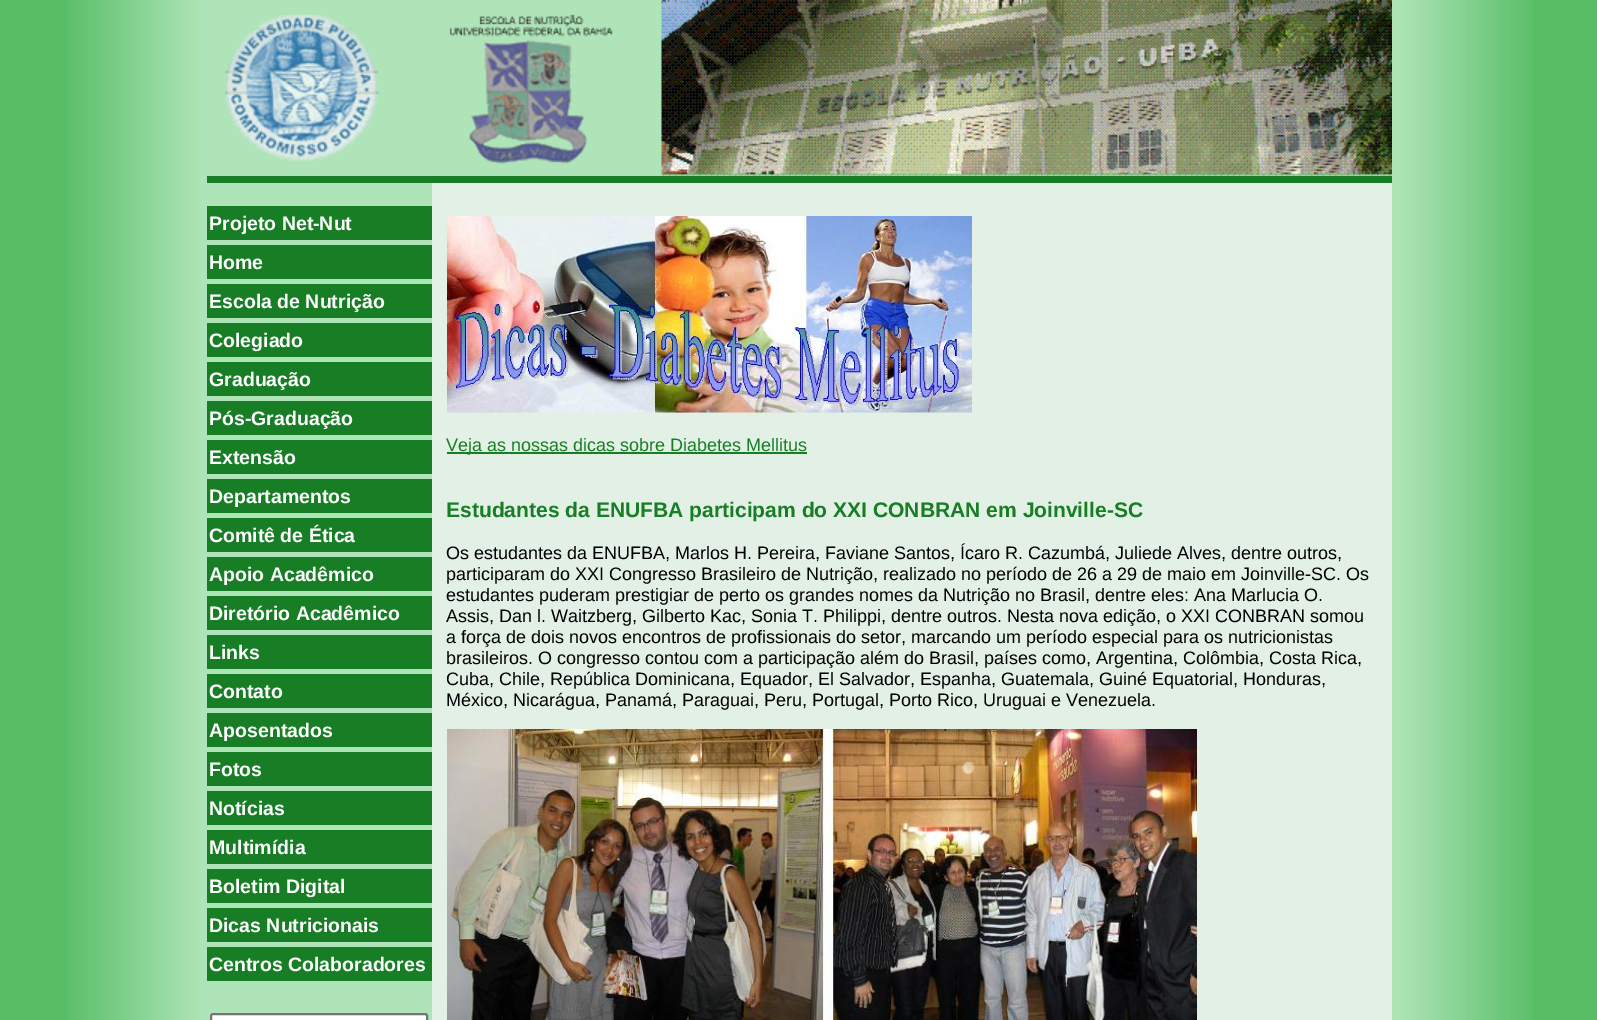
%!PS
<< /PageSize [1597 1020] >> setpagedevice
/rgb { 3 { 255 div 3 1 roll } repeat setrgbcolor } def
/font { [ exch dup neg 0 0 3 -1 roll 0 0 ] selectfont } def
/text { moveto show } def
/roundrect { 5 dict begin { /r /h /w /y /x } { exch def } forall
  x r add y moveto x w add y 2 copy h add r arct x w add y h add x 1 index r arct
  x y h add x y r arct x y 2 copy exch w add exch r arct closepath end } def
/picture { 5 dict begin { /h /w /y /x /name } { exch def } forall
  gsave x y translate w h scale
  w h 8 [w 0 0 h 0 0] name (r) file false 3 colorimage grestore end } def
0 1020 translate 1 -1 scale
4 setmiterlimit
87 190 101 rgb
0 0 1597 1020 rectfill
175 228 184 rgb
207 0 1185 1020 rectfill
(img_01.rgb) 67 0 140 1020 picture
(img_02.rgb) 225 14 388 150 picture
(img_03.rgb) 661 0 731 176 picture
(img_04.rgb) 1392 0 140 1020 picture
23 126 37 rgb
207 176 1185 7 rectfill
207 206 225 34 rectfill
207 245 225 34 rectfill
207 284 225 34 rectfill
207 323 225 34 rectfill
207 362 225 34 rectfill
207 401 225 34 rectfill
207 440 225 34 rectfill
207 479 225 34 rectfill
207 518 225 34 rectfill
207 557 225 34 rectfill
207 596 225 34 rectfill
207 635 225 34 rectfill
207 674 225 34 rectfill
207 713 225 34 rectfill
207 752 225 34 rectfill
207 791 225 34 rectfill
207 830 225 34 rectfill
207 869 225 34 rectfill
207 908 225 34 rectfill
207 947 225 34 rectfill
255 255 255 rgb
211 1014 216 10 2 roundrect gsave fill grestore
118 118 118 rgb
2 setlinewidth
stroke
226 240 229 rgb
432 183 960 837 rectfill
(img_05.rgb) 447 216 525 197 picture
23 126 37 rgb
447 452 360 2 rectfill
(img_06.rgb) 447 729 750 291 picture
/LiberationSans-Bold 19.5 font
255 255 255 rgb
(Projeto Net-Nut) 209 230 text
(Home) 209 269 text
(Escola de Nutrição) 209 308 text
(Colegiado) 209 347 text
(Graduação) 209 386 text
(Pós-Graduação) 209 425 text
(Extensão) 209 464 text
(Departamentos) 209 503 text
(Comitê de Ética) 209 542 text
(Apoio Acadêmico) 209 581 text
(Diretório Acadêmico) 209 620 text
(Links) 209 659 text
(Contato) 209 698 text
(Aposentados) 209 737 text
(Fotos) 209 776 text
(Notícias) 209 815 text
(Multimídia) 209 854 text
(Boletim Digital) 209 893 text
(Dicas Nutricionais) 209 932 text
(Centros Colaboradores) 209 971 text
/LiberationSans-Regular 18 font
23 126 37 rgb
(Veja as nossas dicas sobre Diabetes Mellitus) 446 451 text
/LiberationSans-Bold 21.05 font
(Estudantes da ENUFBA participam do XXI CONBRAN em Joinville-SC) 446 517 text
/LiberationSans-Regular 18 font
0 0 0 rgb
(Os estudantes da ENUFBA, Marlos H. Pereira, Faviane Santos, Ícaro R. Cazumbá, Juliede Alves, dentre outros,) 446 559 text
(participaram do XXI Congresso Brasileiro de Nutrição, realizado no período de 26 a 29 de maio em Joinville-SC. Os) 446 580 text
(estudantes puderam prestigiar de perto os grandes nomes da Nutrição no Brasil, dentre eles: Ana Marlucia O.) 446 601 text
(Assis, Dan l. Waitzberg, Gilberto Kac, Sonia T. Philippi, dentre outros. Nesta nova edição, o XXI CONBRAN somou) 446 622 text
(a força de dois novos encontros de profissionais do setor, marcando um período especial para os nutricionistas) 446 643 text
(brasileiros. O congresso contou com a participação além do Brasil, países como, Argentina, Colômbia, Costa Rica,) 446 664 text
(Cuba, Chile, República Dominicana, Equador, El Salvador, Espanha, Guatemala, Guiné Equatorial, Honduras,) 446 685 text
(México, Nicarágua, Panamá, Paraguai, Peru, Portugal, Porto Rico, Uruguai e Venezuela.) 446 706 text
showpage
